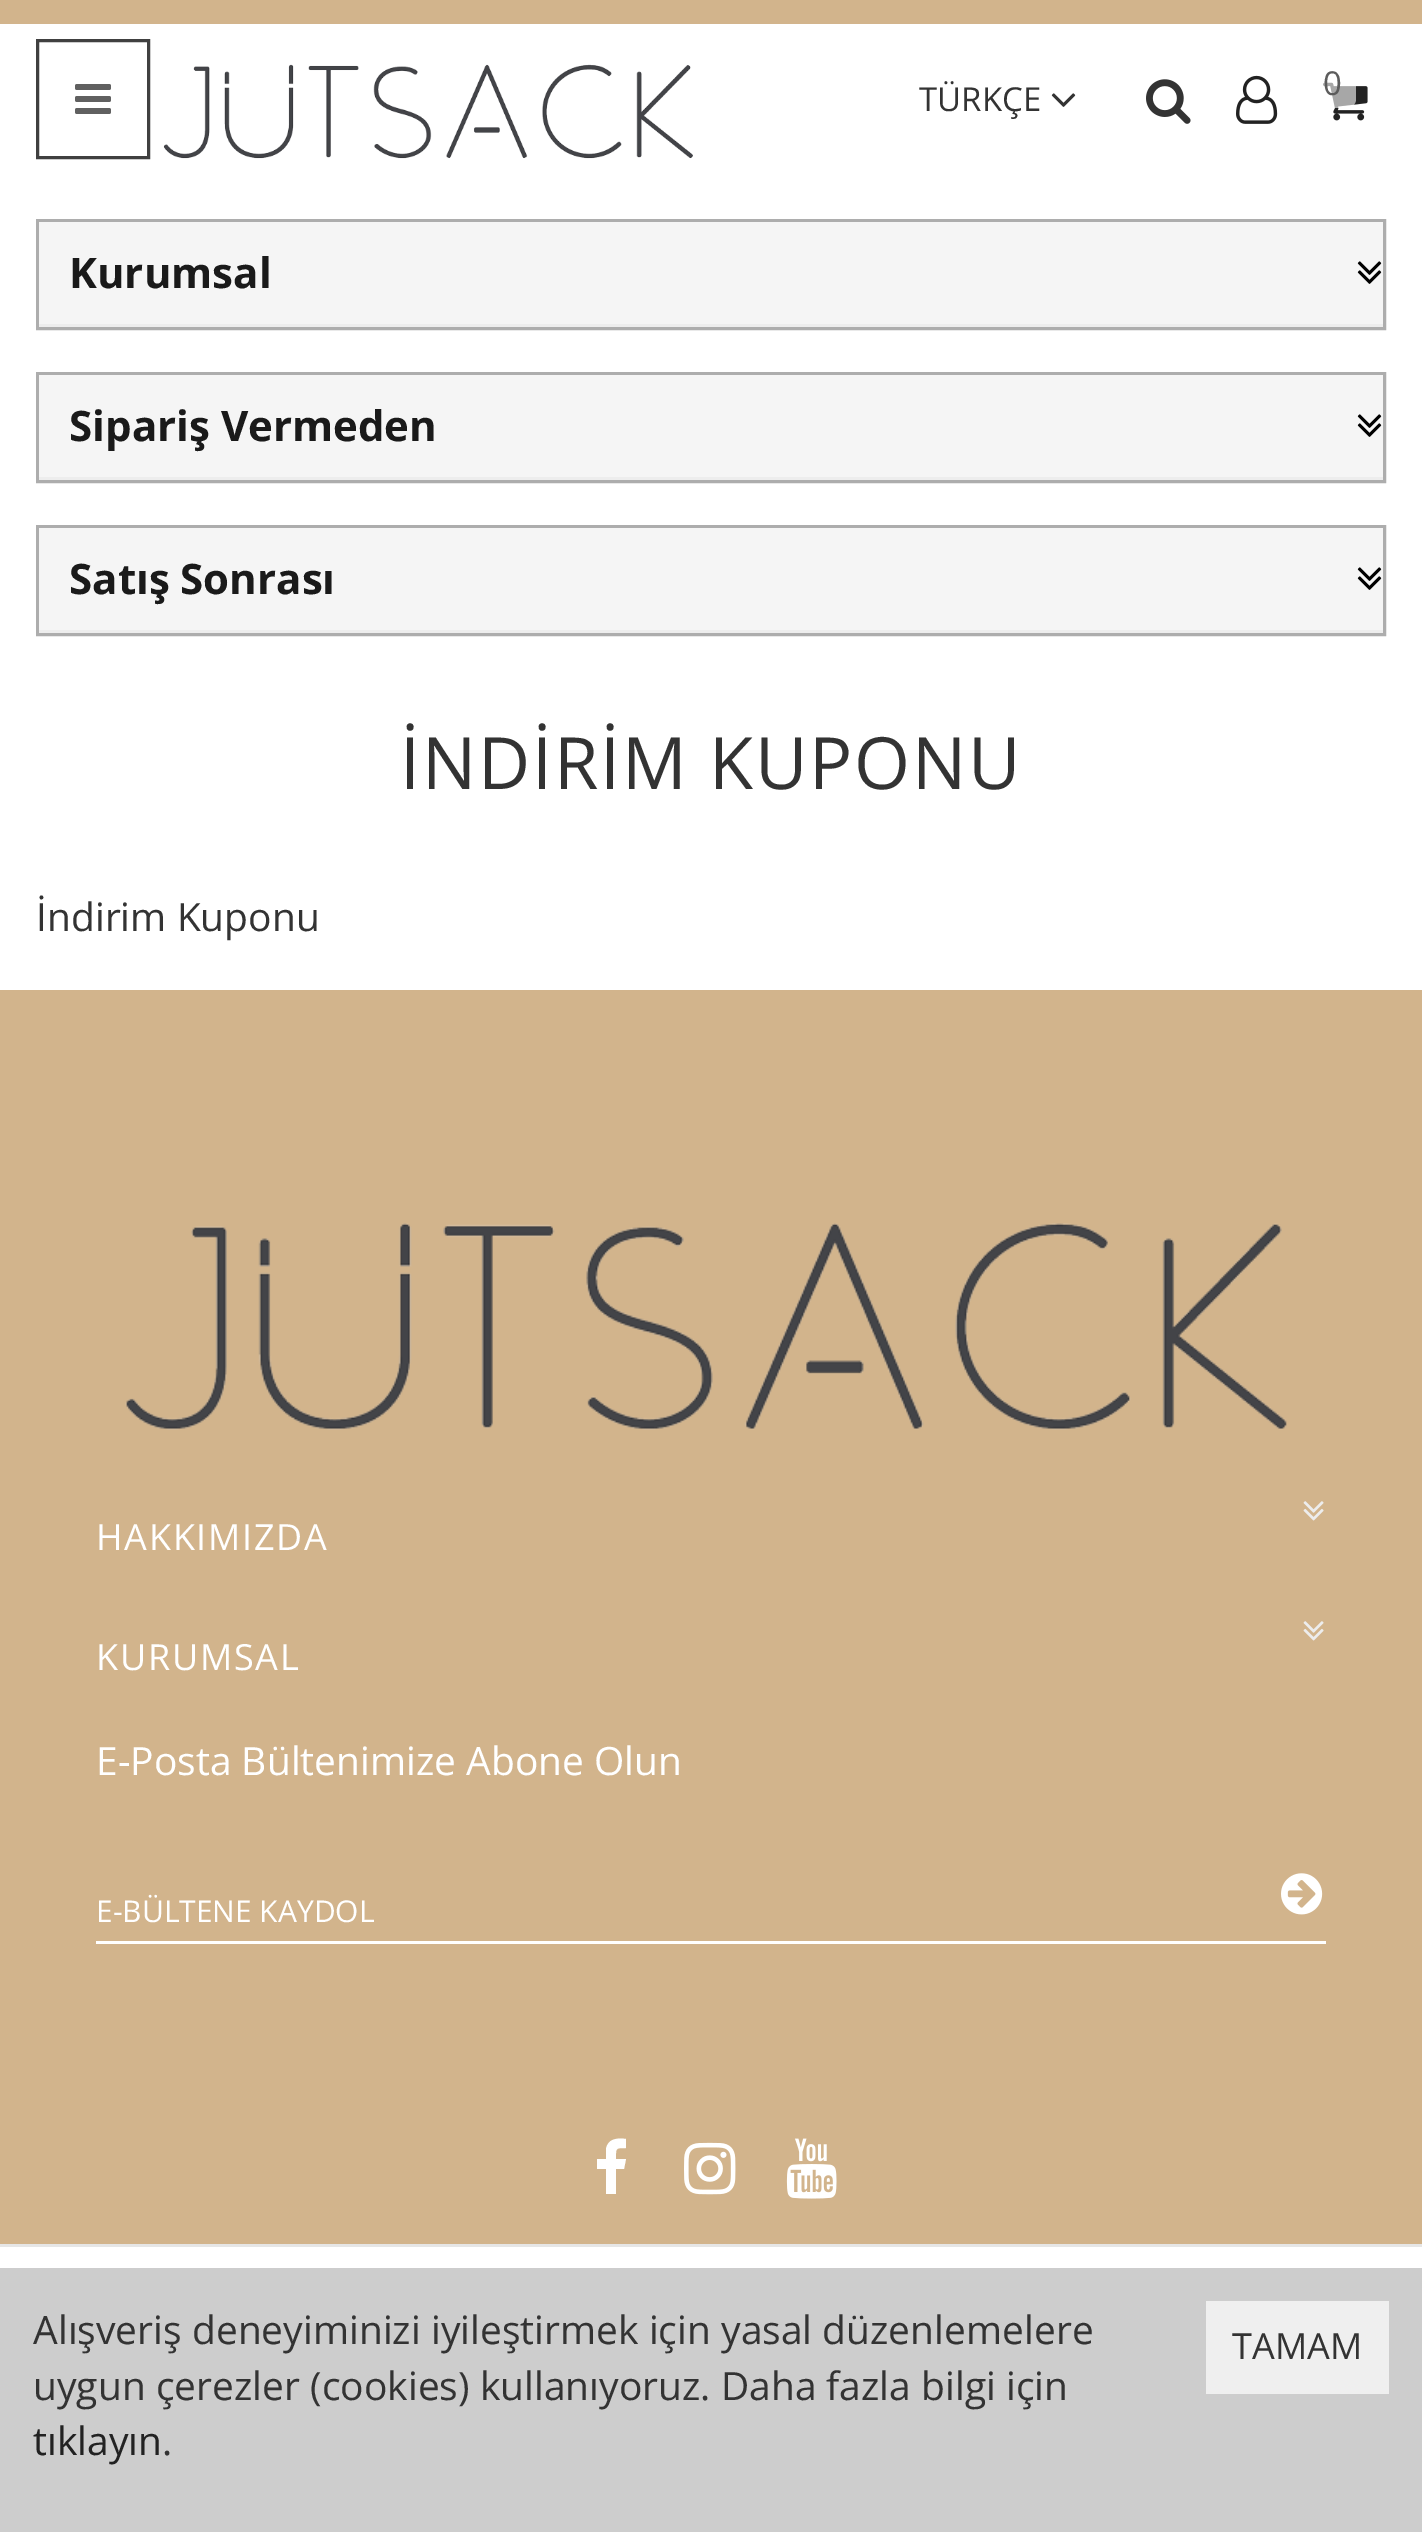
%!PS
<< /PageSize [1422 2532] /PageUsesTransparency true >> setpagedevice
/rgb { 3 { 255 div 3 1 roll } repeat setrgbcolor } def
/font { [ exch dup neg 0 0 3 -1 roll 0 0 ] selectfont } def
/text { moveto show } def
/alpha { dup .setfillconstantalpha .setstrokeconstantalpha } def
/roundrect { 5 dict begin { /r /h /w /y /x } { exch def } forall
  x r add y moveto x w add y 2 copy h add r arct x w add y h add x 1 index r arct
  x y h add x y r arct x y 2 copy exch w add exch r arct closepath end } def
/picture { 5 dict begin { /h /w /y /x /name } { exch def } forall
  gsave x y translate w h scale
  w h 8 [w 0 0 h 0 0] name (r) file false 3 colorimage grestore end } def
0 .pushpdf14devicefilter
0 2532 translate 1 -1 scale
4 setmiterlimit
255 255 255 rgb
0 0 1422 2532 rectfill
210 180 140 rgb
0 0 1422 24 rectfill
64 64 64 rgb
3 setlinewidth
37.5 40.5 111 117 rectstroke
(img_01.rgb) 75 84 36 30 picture
(img_02.rgb) 163 64 530 95 picture
(img_03.rgb) 1051 93 25 14 picture
(img_04.rgb) 1146 79 45 45 picture
(img_05.rgb) 1236 75 42 49 picture
(img_06.rgb) 1323 82 45 39 picture
0.6 alpha
255 255 255 rgb
1308 60 48 48 9 roundrect fill
1 alpha
173 173 173 rgb
37.5 220.5 1347 108 rectstroke
245 245 245 rgb
39 222 1344 102 rectfill
237 237 237 rgb
39 324 1344 3 rectfill
(img_07.rgb) 1357 261 25 23 picture
173 173 173 rgb
37.5 373.5 1347 108 rectstroke
245 245 245 rgb
39 375 1344 102 rectfill
237 237 237 rgb
39 477 1344 3 rectfill
(img_07.rgb) 1357 414 25 23 picture
173 173 173 rgb
37.5 526.5 1347 108 rectstroke
245 245 245 rgb
39 528 1344 102 rectfill
237 237 237 rgb
39 630 1344 3 rectfill
(img_07.rgb) 1357 567 25 23 picture
210 180 140 rgb
0 990 1422 1254 rectfill
(img_08.rgb) 125 1223 1162 207 picture
(img_09.rgb) 1303 1501 21 20 picture
(img_09.rgb) 1303 1621 21 20 picture
255 255 255 rgb
96 1941 1230 3 rectfill
(img_10.rgb) 1281 1873 42 42 picture
626 2139 moveto 0 9 rlineto -11 0 -10 0 -10 11 rcurveto 10 0 rlineto -2 10 rlineto -8 0 rlineto 0 25 rlineto -10 0 rlineto 0 -25 rlineto -9 0 rlineto 0 -10 rlineto 9 0 rlineto 0 -10 rlineto 2 -11 12 -11 20 -10 rcurveto closepath fill
(img_11.rgb) 684 2142 52 53 picture
(img_12.rgb) 786 2138 51 61 picture
230 230 230 rgb
0 2244 1422 3 rectfill
205 205 205 rgb
0 2268 1422 264 rectfill
239 239 239 rgb
1206 2301 183 93 rectfill
/OpenSans-Regular 33 font
51 51 51 rgb
(TÜRKÇE) 919 111 text
92 92 92 rgb
(0) 1323 95 text
/OpenSans-Bold 42 font
26 26 26 rgb
(Kurumsal) 69 288 text
(Sipariş Vermeden) 69 441 text
(Satış Sonrası) 69 594 text
/OpenSans-Regular 72 font
51 51 51 rgb
400 789 moveto 1.75 0 (İNDİRİM KUPONU) ashow
/OpenSans-Regular 39 font
(İndirim Kuponu) 36 931 text
/OpenSans-Regular 36 font
255 255 255 rgb
96 1550 moveto 1.75 0 (HAKKIMIZDA) ashow
96 1670 moveto 1.75 0 (KURUMSAL) ashow
/OpenSans-Regular 39 font
(E-Posta Bültenimize Abone Olun) 96 1775 text
/OpenSans-Regular 30 font
(E-BÜLTENE KAYDOL) 96 1922 text
/OpenSans-Regular 39 font
51 51 51 rgb
(Alışveriş deneyiminizi iyileştirmek için yasal düzenlemelere) 33 2344 text
(uygun çerezler \(cookies\) kullanıyoruz. Daha fazla bilgi için) 33 2400 text
34 34 34 rgb
(tıklayın) 33 2455 text
51 51 51 rgb
(.) 162 2455 text
/OpenSans-Regular 36 font
(TAMAM) 1232 2359 text
.poppdf14devicefilter showpage
